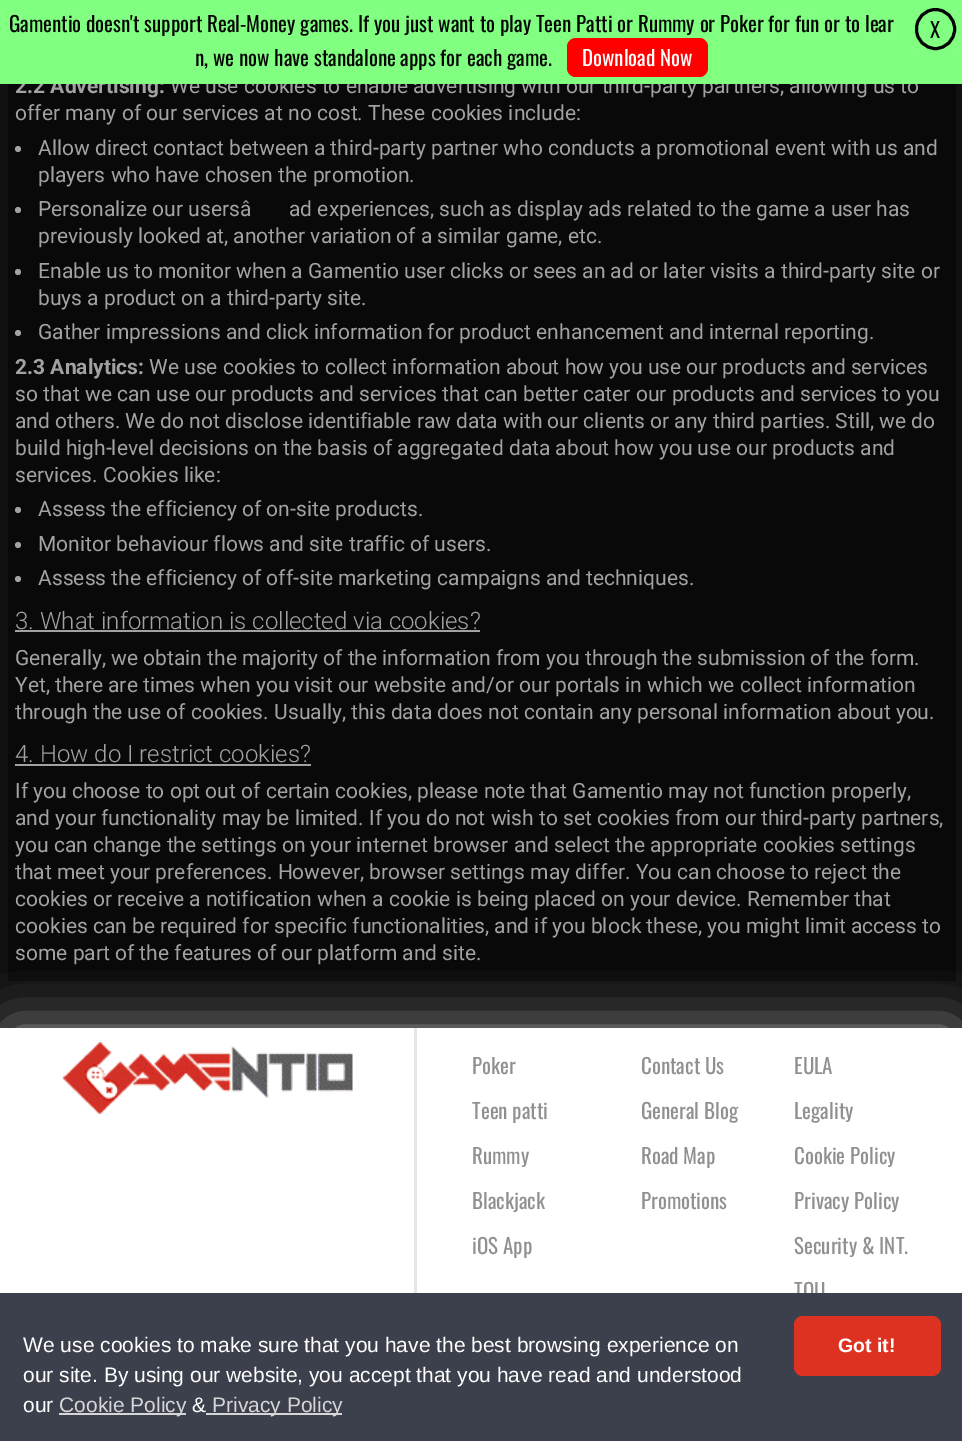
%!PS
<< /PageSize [962 1441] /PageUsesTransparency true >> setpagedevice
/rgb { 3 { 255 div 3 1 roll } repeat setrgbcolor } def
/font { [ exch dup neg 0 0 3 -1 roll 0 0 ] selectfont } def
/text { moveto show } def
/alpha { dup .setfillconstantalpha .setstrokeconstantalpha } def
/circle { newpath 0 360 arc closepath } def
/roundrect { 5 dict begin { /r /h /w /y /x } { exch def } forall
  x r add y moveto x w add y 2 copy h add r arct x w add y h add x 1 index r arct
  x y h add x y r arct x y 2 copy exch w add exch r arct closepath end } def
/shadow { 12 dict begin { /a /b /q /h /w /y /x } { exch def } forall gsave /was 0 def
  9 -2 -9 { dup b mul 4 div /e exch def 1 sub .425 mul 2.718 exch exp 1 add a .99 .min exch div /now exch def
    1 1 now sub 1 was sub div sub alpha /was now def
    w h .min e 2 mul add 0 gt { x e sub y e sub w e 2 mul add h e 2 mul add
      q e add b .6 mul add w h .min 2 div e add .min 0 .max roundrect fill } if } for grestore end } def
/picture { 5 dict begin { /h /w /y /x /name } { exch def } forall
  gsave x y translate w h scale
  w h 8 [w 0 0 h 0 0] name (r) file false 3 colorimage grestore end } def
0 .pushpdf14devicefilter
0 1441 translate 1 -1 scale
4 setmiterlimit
17 17 17 rgb
0 0 962 1441 rectfill
9 9 9 rgb
8 84 948 897 rectfill
162 162 162 rgb
18 149 3 circle fill
18 210 3 circle fill
18 272 3 circle fill
18 333 3 circle fill
18 510 3 circle fill
18 545 3 circle fill
18 579 3 circle fill
15 630 465 2 rectfill
15 764 296 2 rectfill
169 167 167 rgb
11 1031 942 393 0 27 1 shadow
255 255 255 rgb
0 1028 962 265 rectfill
(img_01.rgb) 62 1042 291 72 picture
230 230 230 rgb
414 1028 3 265 rectfill
/Roboto-Bold 21 font
162 162 162 rgb
(2.2 Advertising:) 15 93 text
/Roboto-Regular 21 font
(We use cookies to enable advertising with our third-party partners, allowing us to) 170 93 text
128 255 128 rgb
0 0 962 84 rectfill
5 5 5 rgb
3 setlinewidth
916.5 9.5 38 39 19 roundrect stroke
/Oswald-Regular 21 font
(X) 930 38 text
255 0 0 rgb
567 38 141 39 9 roundrect fill
255 255 255 rgb
(Download Now) 582 66 text
5 5 5 rgb
(n, we now have standalone apps for each game.) 195 66 text
(Gamentio doesn't support Real-Money games. If you just want to play Teen Patti or Rummy or Poker for fun or to lear) 9 32 text
/Roboto-Regular 21 font
162 162 162 rgb
(offer many of our services at no cost. These cookies include:) 15 120 text
(Allow direct contact between a third-party partner who conducts a promotional event with us and) 38 155 text
(players who have chosen the promotion.) 38 182 text
(Personalize our usersâ) 38 216 text
(ad experiences, such as display ads related to the game a user has) 289 216 text
(previously looked at, another variation of a similar game, etc.) 38 243 text
(Enable us to monitor when a Gamentio user clicks or sees an ad or later visits a third-party site or) 38 278 text
(buys a product on a third-party site.) 38 305 text
(Gather impressions and click information for product enhancement and internal reporting.) 38 339 text
/Roboto-Bold 21 font
(2.3 Analytics:) 15 374 text
/Roboto-Regular 21 font
(We use cookies to collect information about how you use our products and services) 149 374 text
(so that we can use our products and services that can better cater our products and services to you) 15 401 text
(and others. We do not disclose identifiable raw data with our clients or any third parties. Still, we do) 15 428 text
(build high-level decisions on the basis of aggregated data about how you use our products and) 15 455 text
(services. Cookies like:) 15 482 text
(Assess the efficiency of on-site products.) 38 516 text
(Monitor behaviour flows and site traffic of users.) 38 551 text
(Assess the efficiency of off-site marketing campaigns and techniques.) 38 585 text
/Roboto-Light 24 font
(3. What information is collected via cookies?) 15 629 text
/Roboto-Regular 21 font
(Generally, we obtain the majority of the information from you through the submission of the form.) 15 665 text
(Yet, there are times when you visit our website and/or our portals in which we collect information) 15 692 text
(through the use of cookies. Usually, this data does not contain any personal information about you.) 15 719 text
/Roboto-Light 24 font
(4. How do I restrict cookies?) 15 762 text
/Roboto-Regular 21 font
(If you choose to opt out of certain cookies, please note that Gamentio may not function properly,) 15 798 text
(and your functionality may be limited. If you do not wish to set cookies from our third-party partners,) 15 825 text
(you can change the settings on your internet browser and select the appropriate cookies settings) 15 852 text
(that meet your preferences. However, browser settings may differ. You can choose to reject the) 15 879 text
(cookies or receive a notification when a cookie is being placed on your device. Remember that) 15 906 text
(cookies can be required for specific functionalities, and if you block these, you might limit access to) 15 933 text
(some part of the features of our platform and site.) 15 960 text
/Oswald-Regular 21 font
144 144 144 rgb
(Poker) 472 1074 text
(Teen patti) 472 1119 text
(Rummy) 472 1164 text
(Blackjack) 472 1209 text
(iOS App) 472 1254 text
(Contact Us) 641 1074 text
(General Blog) 641 1119 text
(Road Map) 641 1164 text
(Promotions) 641 1209 text
(EULA) 794 1074 text
(Legality) 794 1119 text
(Cookie Policy) 794 1164 text
(Privacy Policy) 794 1209 text
(Security & INT.) 794 1254 text
(TOU) 794 1299 text
60 64 77 rgb
0 1293 962 148 rectfill
/LiberationSans-Regular 21 font
255 255 255 rgb
(We use cookies to make sure that you have the best browsing experience on) 23 1352 text
(our site. By using our website, you accept that you have read and understood) 23 1382 text
(our) 23 1412 text
214 214 214 rgb
59 1413 127 2 rectfill
(Cookie Policy) 59 1412 text
255 255 255 rgb
(&) 192 1412 text
214 214 214 rgb
206 1413 136 2 rectfill
(Privacy Policy) 212 1412 text
221 50 33 rgb
794 1316 147 60 9 roundrect fill
/LiberationSans-Bold 19.5 font
255 255 255 rgb
(Got it!) 838 1352 text
.poppdf14devicefilter showpage
